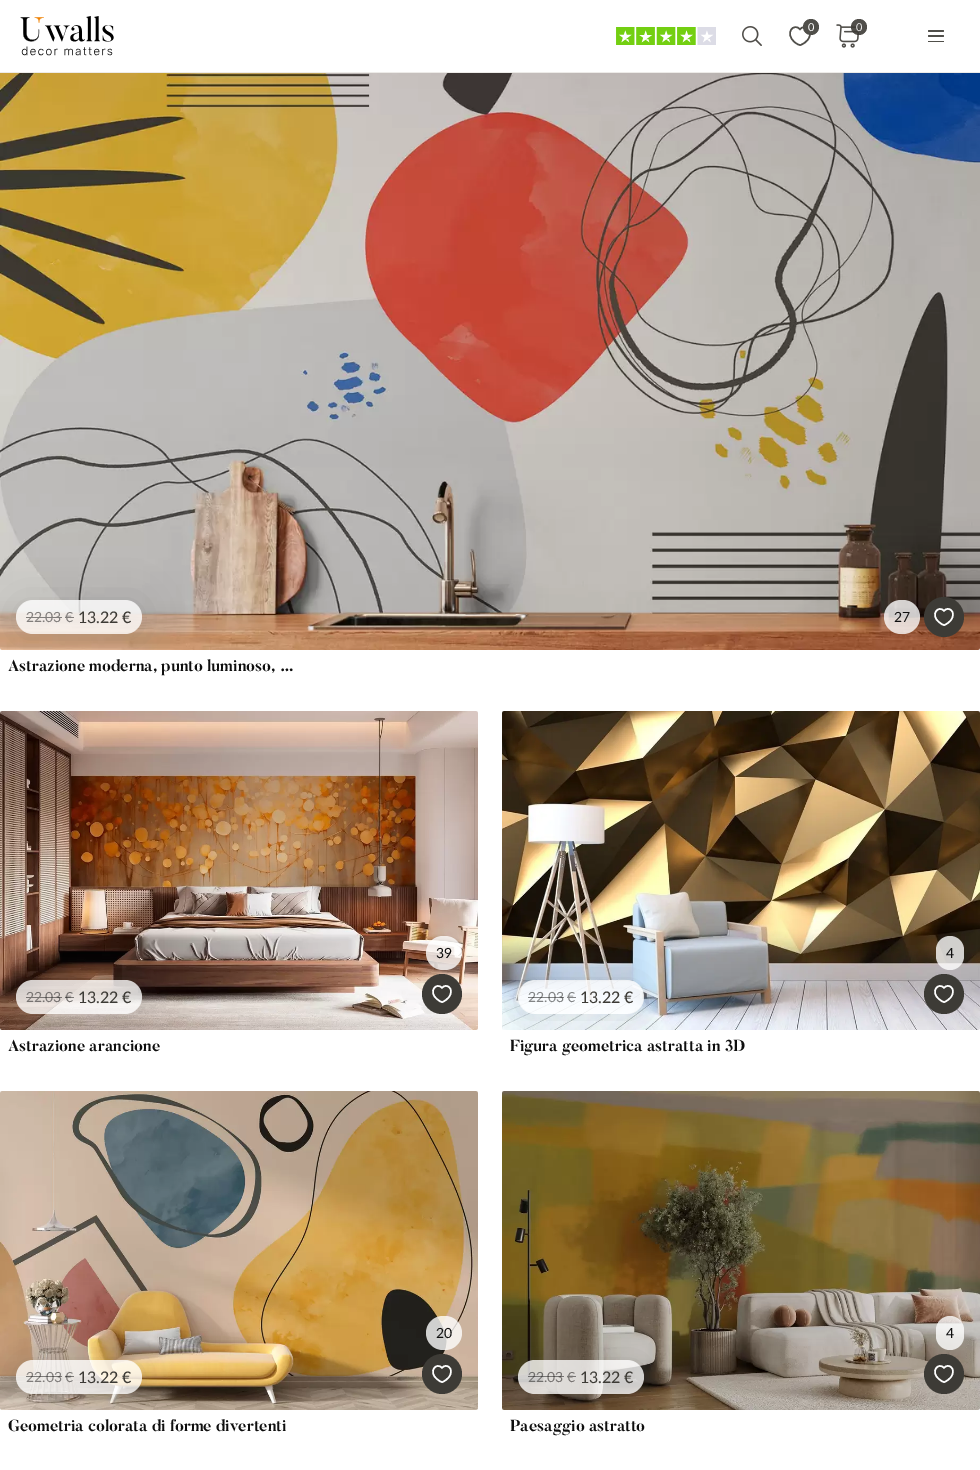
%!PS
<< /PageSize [980 1470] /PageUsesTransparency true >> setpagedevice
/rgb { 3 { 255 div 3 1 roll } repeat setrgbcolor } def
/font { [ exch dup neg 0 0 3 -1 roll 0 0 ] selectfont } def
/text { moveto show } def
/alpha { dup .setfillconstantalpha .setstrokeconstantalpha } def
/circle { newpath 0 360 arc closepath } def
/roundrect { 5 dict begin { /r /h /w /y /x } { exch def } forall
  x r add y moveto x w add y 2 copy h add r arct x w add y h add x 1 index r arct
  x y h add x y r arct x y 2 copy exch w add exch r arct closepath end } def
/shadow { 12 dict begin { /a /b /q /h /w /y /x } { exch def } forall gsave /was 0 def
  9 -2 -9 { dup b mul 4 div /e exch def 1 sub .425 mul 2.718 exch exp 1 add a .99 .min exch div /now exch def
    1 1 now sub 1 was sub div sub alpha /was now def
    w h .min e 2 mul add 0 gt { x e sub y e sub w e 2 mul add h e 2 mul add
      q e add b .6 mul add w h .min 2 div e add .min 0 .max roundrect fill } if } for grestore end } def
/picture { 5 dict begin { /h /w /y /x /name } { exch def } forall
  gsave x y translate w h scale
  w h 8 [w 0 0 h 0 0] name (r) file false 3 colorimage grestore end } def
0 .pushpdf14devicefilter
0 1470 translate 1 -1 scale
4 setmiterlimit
255 255 255 rgb
0 0 980 1470 rectfill
237 235 232 rgb
0 72 980 1 rectfill
(img_01.rgb) 20 16 94 40 picture
(img_02.rgb) 616 27 100 18 picture
(img_03.rgb) 742 26 20 20 picture
80 79 74 rgb
1.5 setlinewidth
1 setlinecap
1 setlinejoin
800.5 45 moveto -1.5 0.5 -4 -1.5 -5.5 -2.5 rcurveto -11.5 -9.5 -0.5 -20.5 5 -13 rcurveto 4.5 -6.5 14.5 0.5 8 10 rcurveto -2 2.5 -4.5 4.5 -7.5 5.5 rcurveto closepath stroke
811 27 8 circle fill
(img_04.rgb) 836 24 24 24 picture
0.9 alpha
61 59 54 rgb
859 27 8 circle fill
1 alpha
80 79 74 rgb
928 30 16 2 1 roundrect fill
928 35 16 2 1 roundrect fill
928 41 16 1 0.5 roundrect fill
(img_05.rgb) 0 73 980 577 picture
gsave
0 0 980 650 rectclip
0 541 moveto 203 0 rlineto 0 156 rlineto -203 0 rlineto closepath 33 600 moveto 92 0 rlineto 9.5 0 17 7.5 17 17 rcurveto 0 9.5 -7.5 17 -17 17 rcurveto -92 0 rlineto -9.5 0 -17 -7.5 -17 -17 rcurveto 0 -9.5 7.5 -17 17 -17 rcurveto closepath eoclip newpath
94 94 94 rgb
16 602 126 34 17 20 0.2 shadow
grestore
0.79 alpha
255 255 255 rgb
16 600 126 34 17 roundrect fill
884 600 36 34 17 roundrect fill
1 alpha
61 59 54 rgb
944 617 20 circle fill
255 255 255 rgb
944.5 625 moveto -1.5 0.5 -3.5 -1.5 -5 -2.5 rcurveto -10.5 -8 -0.5 -18 4.5 -11.5 rcurveto 4 -5.5 13 0.5 7 9 rcurveto -1.5 2 -4 4 -6.5 5 rcurveto closepath stroke
(img_06.rgb) 0 711 478 319 picture
0.79 alpha
426 936 36 34 17 roundrect fill
1 alpha
61 59 54 rgb
442 994 20 circle fill
255 255 255 rgb
442.5 1002 moveto -1.5 0.5 -3.5 -1.5 -5 -2.5 rcurveto -10.5 -8 -0.5 -18 4.5 -11.5 rcurveto 4 -5.5 13 0.5 7 9 rcurveto -1.5 2 -4 4 -6.5 5 rcurveto closepath stroke
gsave
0 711 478 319 rectclip
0 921 moveto 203 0 rlineto 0 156 rlineto -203 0 rlineto closepath 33 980 moveto 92 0 rlineto 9.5 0 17 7.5 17 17 rcurveto 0 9.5 -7.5 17 -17 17 rcurveto -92 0 rlineto -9.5 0 -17 -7.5 -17 -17 rcurveto 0 -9.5 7.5 -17 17 -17 rcurveto closepath eoclip newpath
94 94 94 rgb
16 982 126 34 17 20 0.2 shadow
grestore
0.79 alpha
16 980 126 34 17 roundrect fill
1 alpha
119 115 113 rgb
26 997 16 1 rectfill
(img_07.rgb) 502 711 478 319 picture
0.79 alpha
255 255 255 rgb
936 936 28 34 14 roundrect fill
1 alpha
61 59 54 rgb
944 994 20 circle fill
255 255 255 rgb
944.5 1002 moveto -1.5 0.5 -3.5 -1.5 -5 -2.5 rcurveto -10.5 -8 -0.5 -18 4.5 -11.5 rcurveto 4 -5.5 13 0.5 7 9 rcurveto -1.5 2 -4 4 -6.5 5 rcurveto closepath stroke
gsave
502 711 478 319 rectclip
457 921 moveto 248 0 rlineto 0 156 rlineto -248 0 rlineto closepath 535 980 moveto 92 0 rlineto 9.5 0 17 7.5 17 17 rcurveto 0 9.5 -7.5 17 -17 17 rcurveto -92 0 rlineto -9.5 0 -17 -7.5 -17 -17 rcurveto 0 -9.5 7.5 -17 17 -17 rcurveto closepath eoclip newpath
94 94 94 rgb
518 982 126 34 17 20 0.2 shadow
grestore
0.79 alpha
518 980 126 34 17 roundrect fill
1 alpha
(img_08.rgb) 0 1091 478 319 picture
0.79 alpha
426 1316 36 34 17 roundrect fill
1 alpha
61 59 54 rgb
442 1374 20 circle fill
255 255 255 rgb
442.5 1382 moveto -1.5 0.5 -3.5 -1.5 -5 -2.5 rcurveto -10.5 -8 -0.5 -18 4.5 -11.5 rcurveto 4 -5.5 13 0.5 7 9 rcurveto -1.5 2 -4 4 -6.5 5 rcurveto closepath stroke
gsave
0 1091 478 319 rectclip
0 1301 moveto 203 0 rlineto 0 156 rlineto -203 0 rlineto closepath 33 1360 moveto 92 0 rlineto 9.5 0 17 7.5 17 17 rcurveto 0 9.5 -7.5 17 -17 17 rcurveto -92 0 rlineto -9.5 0 -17 -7.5 -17 -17 rcurveto 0 -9.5 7.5 -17 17 -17 rcurveto closepath eoclip newpath
94 94 94 rgb
16 1362 126 34 17 20 0.2 shadow
grestore
0.79 alpha
16 1360 126 34 17 roundrect fill
1 alpha
(img_09.rgb) 502 1091 478 319 picture
0.79 alpha
936 1316 28 34 14 roundrect fill
1 alpha
61 59 54 rgb
944 1374 20 circle fill
255 255 255 rgb
944.5 1382 moveto -1.5 0.5 -3.5 -1.5 -5 -2.5 rcurveto -10.5 -8 -0.5 -18 4.5 -11.5 rcurveto 4 -5.5 13 0.5 7 9 rcurveto -1.5 2 -4 4 -6.5 5 rcurveto closepath stroke
gsave
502 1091 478 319 rectclip
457 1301 moveto 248 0 rlineto 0 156 rlineto -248 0 rlineto closepath 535 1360 moveto 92 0 rlineto 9.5 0 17 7.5 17 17 rcurveto 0 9.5 -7.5 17 -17 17 rcurveto -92 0 rlineto -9.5 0 -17 -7.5 -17 -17 rcurveto 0 -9.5 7.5 -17 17 -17 rcurveto closepath eoclip newpath
94 94 94 rgb
518 1362 126 34 17 20 0.2 shadow
grestore
0.79 alpha
518 1360 126 34 17 roundrect fill
/Lato-Regular 11 font
1 alpha
(0) 808 31 text
237 237 237 rgb
(0) 856 31 text
/Lato-Regular 14 font
129 126 124 rgb
(22) 26 622 text
129 126 123 rgb
26 617 16 1 rectfill
129 126 124 rgb
(.03 €) 42 622 text
128 125 123 rgb
42 617 20 1 rectfill
129 125 123 rgb
65 617 9 1 rectfill
/Lato-Regular 16 font
61 59 54 rgb
(13) 78 623 text
/Lato-Medium 16 font
(.22 €) 96 623 text
/Lato-Regular 14 font
15 15 15 rgb
(27) 894 622 text
/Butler-Bold 16 font
(Astrazione moderna, punto luminoso, …) 8 671 text
/Lato-Regular 14 font
(39) 436 958 text
119 115 113 rgb
(22) 26 1002 text
(.03) 42 1002 text
0.5 alpha
15 15 15 rgb
42 997 20 1 rectfill
1 alpha
119 115 113 rgb
(€) 65 1002 text
0.5 alpha
15 15 15 rgb
65 997 9 1 rectfill
/Lato-Regular 16 font
1 alpha
61 59 54 rgb
(13) 78 1003 text
/Lato-Medium 16 font
(.22 €) 96 1003 text
/Butler-Bold 16 font
15 15 15 rgb
(Astrazione arancione) 8 1051 text
/Lato-Regular 14 font
(4) 946 958 text
131 133 134 rgb
(22.03) 528 1002 text
0.5 alpha
15 15 15 rgb
528 997 16 1 rectfill
1 alpha
131 133 134 rgb
(€) 567 1002 text
132 133 135 rgb
567 997 9 1 rectfill
0.5 alpha
15 15 15 rgb
544 997 20 1 rectfill
/Lato-Regular 16 font
1 alpha
61 59 54 rgb
(13) 580 1003 text
/Lato-Medium 16 font
(.22 €) 598 1003 text
/Butler-Bold 16 font
15 15 15 rgb
(Figura geometrica astratta in 3D) 510 1051 text
/Lato-Regular 14 font
(20) 436 1338 text
129 126 124 rgb
(22.03) 26 1382 text
0.5 alpha
15 15 15 rgb
26 1376 16 1 rectfill
1 alpha
129 126 124 rgb
(€) 65 1382 text
0.5 alpha
15 15 15 rgb
65 1376 9 1 rectfill
42 1376 20 1 rectfill
/Lato-Regular 16 font
1 alpha
61 59 54 rgb
(13) 78 1383 text
/Lato-Medium 16 font
(.22 €) 96 1383 text
/Butler-Bold 16 font
15 15 15 rgb
(Geometria colorata di forme divertenti) 8 1431 text
/Lato-Regular 14 font
(4) 946 1338 text
113 112 110 rgb
(22) 528 1382 text
0.5 alpha
15 15 15 rgb
528 1376 16 1 rectfill
1 alpha
119 115 113 rgb
(.03) 544 1382 text
0.5 alpha
15 15 15 rgb
544 1376 20 1 rectfill
1 alpha
119 115 113 rgb
(€) 567 1382 text
119 117 116 rgb
567 1376 9 1 rectfill
/Lato-Regular 16 font
61 59 54 rgb
(13) 580 1383 text
/Lato-Medium 16 font
(.22 €) 598 1383 text
/Butler-Bold 16 font
15 15 15 rgb
(Paesaggio astratto) 510 1431 text
.poppdf14devicefilter showpage
